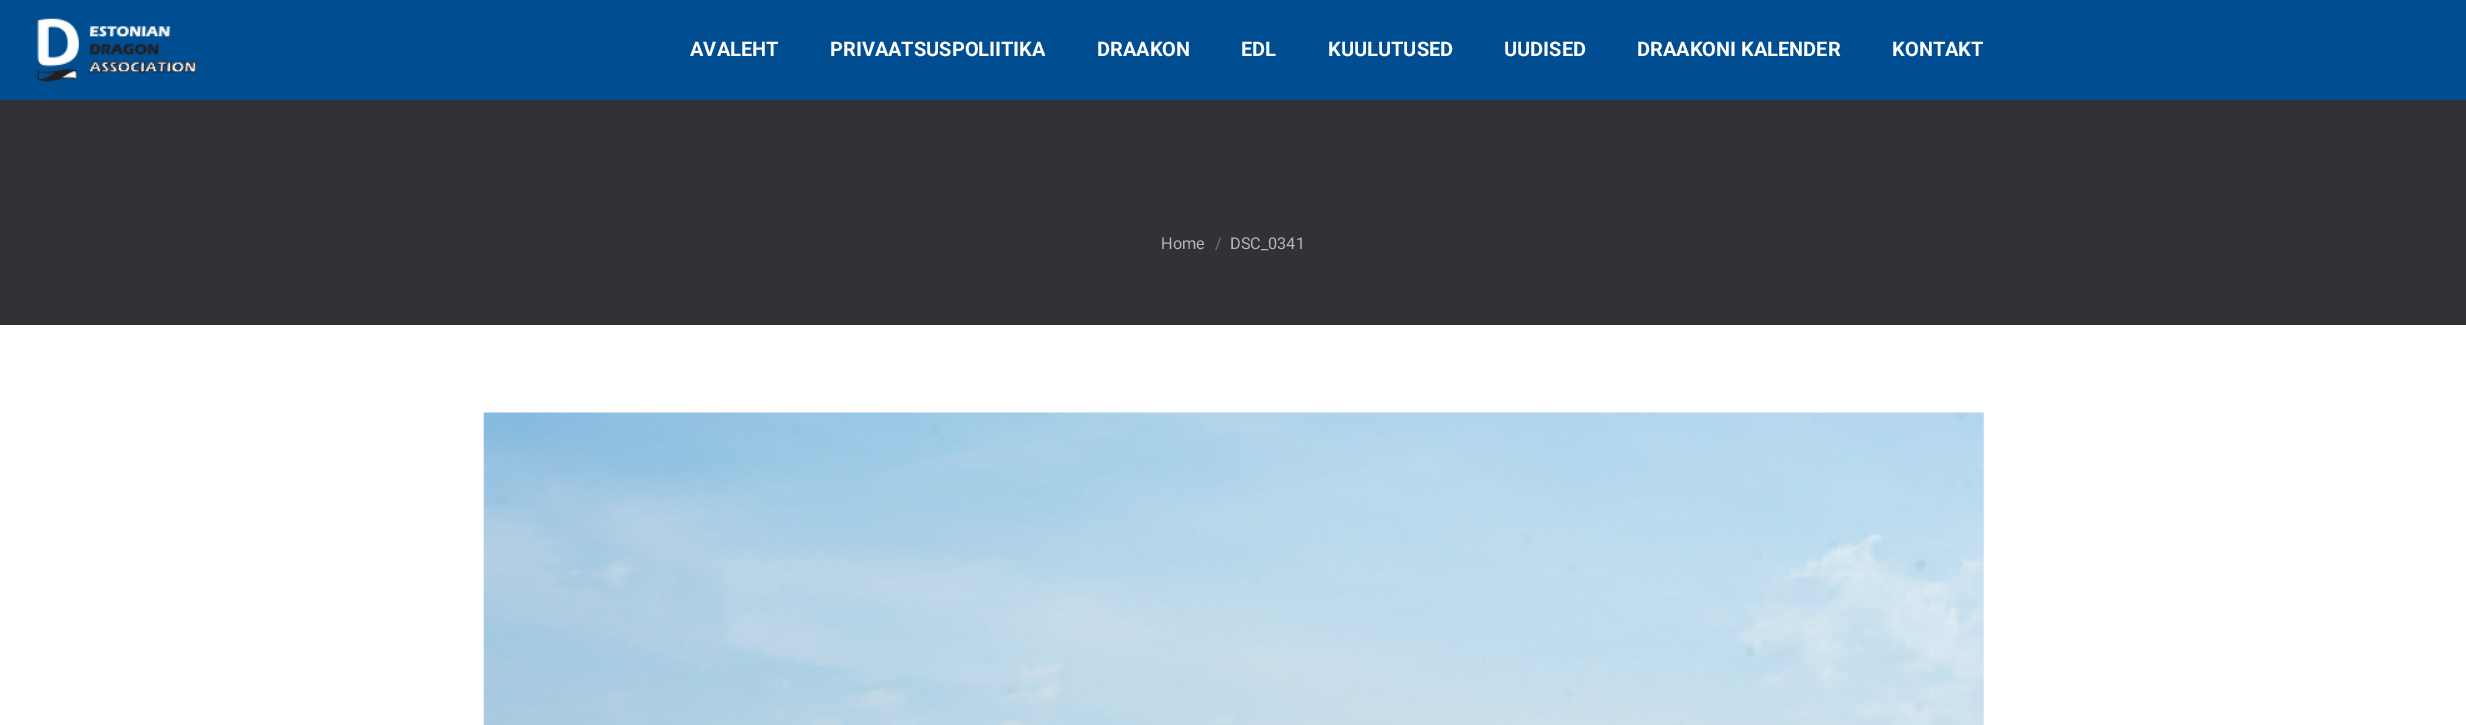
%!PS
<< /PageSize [2466 725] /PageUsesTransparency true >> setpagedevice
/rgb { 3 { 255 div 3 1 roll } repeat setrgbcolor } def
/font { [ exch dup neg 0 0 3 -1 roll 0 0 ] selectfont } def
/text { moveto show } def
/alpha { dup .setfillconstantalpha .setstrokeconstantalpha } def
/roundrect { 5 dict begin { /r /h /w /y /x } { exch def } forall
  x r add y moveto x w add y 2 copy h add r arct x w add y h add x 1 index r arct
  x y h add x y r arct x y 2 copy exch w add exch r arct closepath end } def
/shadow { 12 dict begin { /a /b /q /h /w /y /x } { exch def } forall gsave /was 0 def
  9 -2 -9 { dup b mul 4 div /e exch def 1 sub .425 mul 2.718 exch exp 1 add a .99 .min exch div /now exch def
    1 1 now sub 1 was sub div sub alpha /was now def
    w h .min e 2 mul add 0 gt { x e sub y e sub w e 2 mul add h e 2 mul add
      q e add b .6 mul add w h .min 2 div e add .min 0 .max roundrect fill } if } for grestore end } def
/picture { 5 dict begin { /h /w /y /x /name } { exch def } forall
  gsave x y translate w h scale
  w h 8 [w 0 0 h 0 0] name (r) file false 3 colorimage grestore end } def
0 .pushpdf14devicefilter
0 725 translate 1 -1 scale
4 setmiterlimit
255 255 255 rgb
0 0 2466 725 rectfill
48 50 54 rgb
0 100 2466 225 rectfill
0 0 0 rgb
-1 -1 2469 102 0 9.5 0.07 shadow
0 77 145 rgb
0 0 2466 100 rectfill
(img_01.rgb) 37 18 160 64 picture
(img_02.rgb) 483 412 1501 313 picture
/Roboto-Bold 20 font
255 255 255 rgb
(AVALEHT) 690 56 text
(PRIVAATSUSPOLIITIKA) 830 56 text
(DRAAKON) 1097 56 text
(EDL) 1241 56 text
(KUULUTUSED) 1328 56 text
(UUDISED) 1504 56 text
(DRAAKONI KALENDER) 1637 56 text
(KONTAKT) 1892 56 text
/Roboto-Regular 16.25 font
180 181 187 rgb
(Home) 1161 249 text
114 116 121 rgb
(/) 1215 249 text
180 181 187 rgb
(DSC_0341) 1230 249 text
.poppdf14devicefilter showpage
